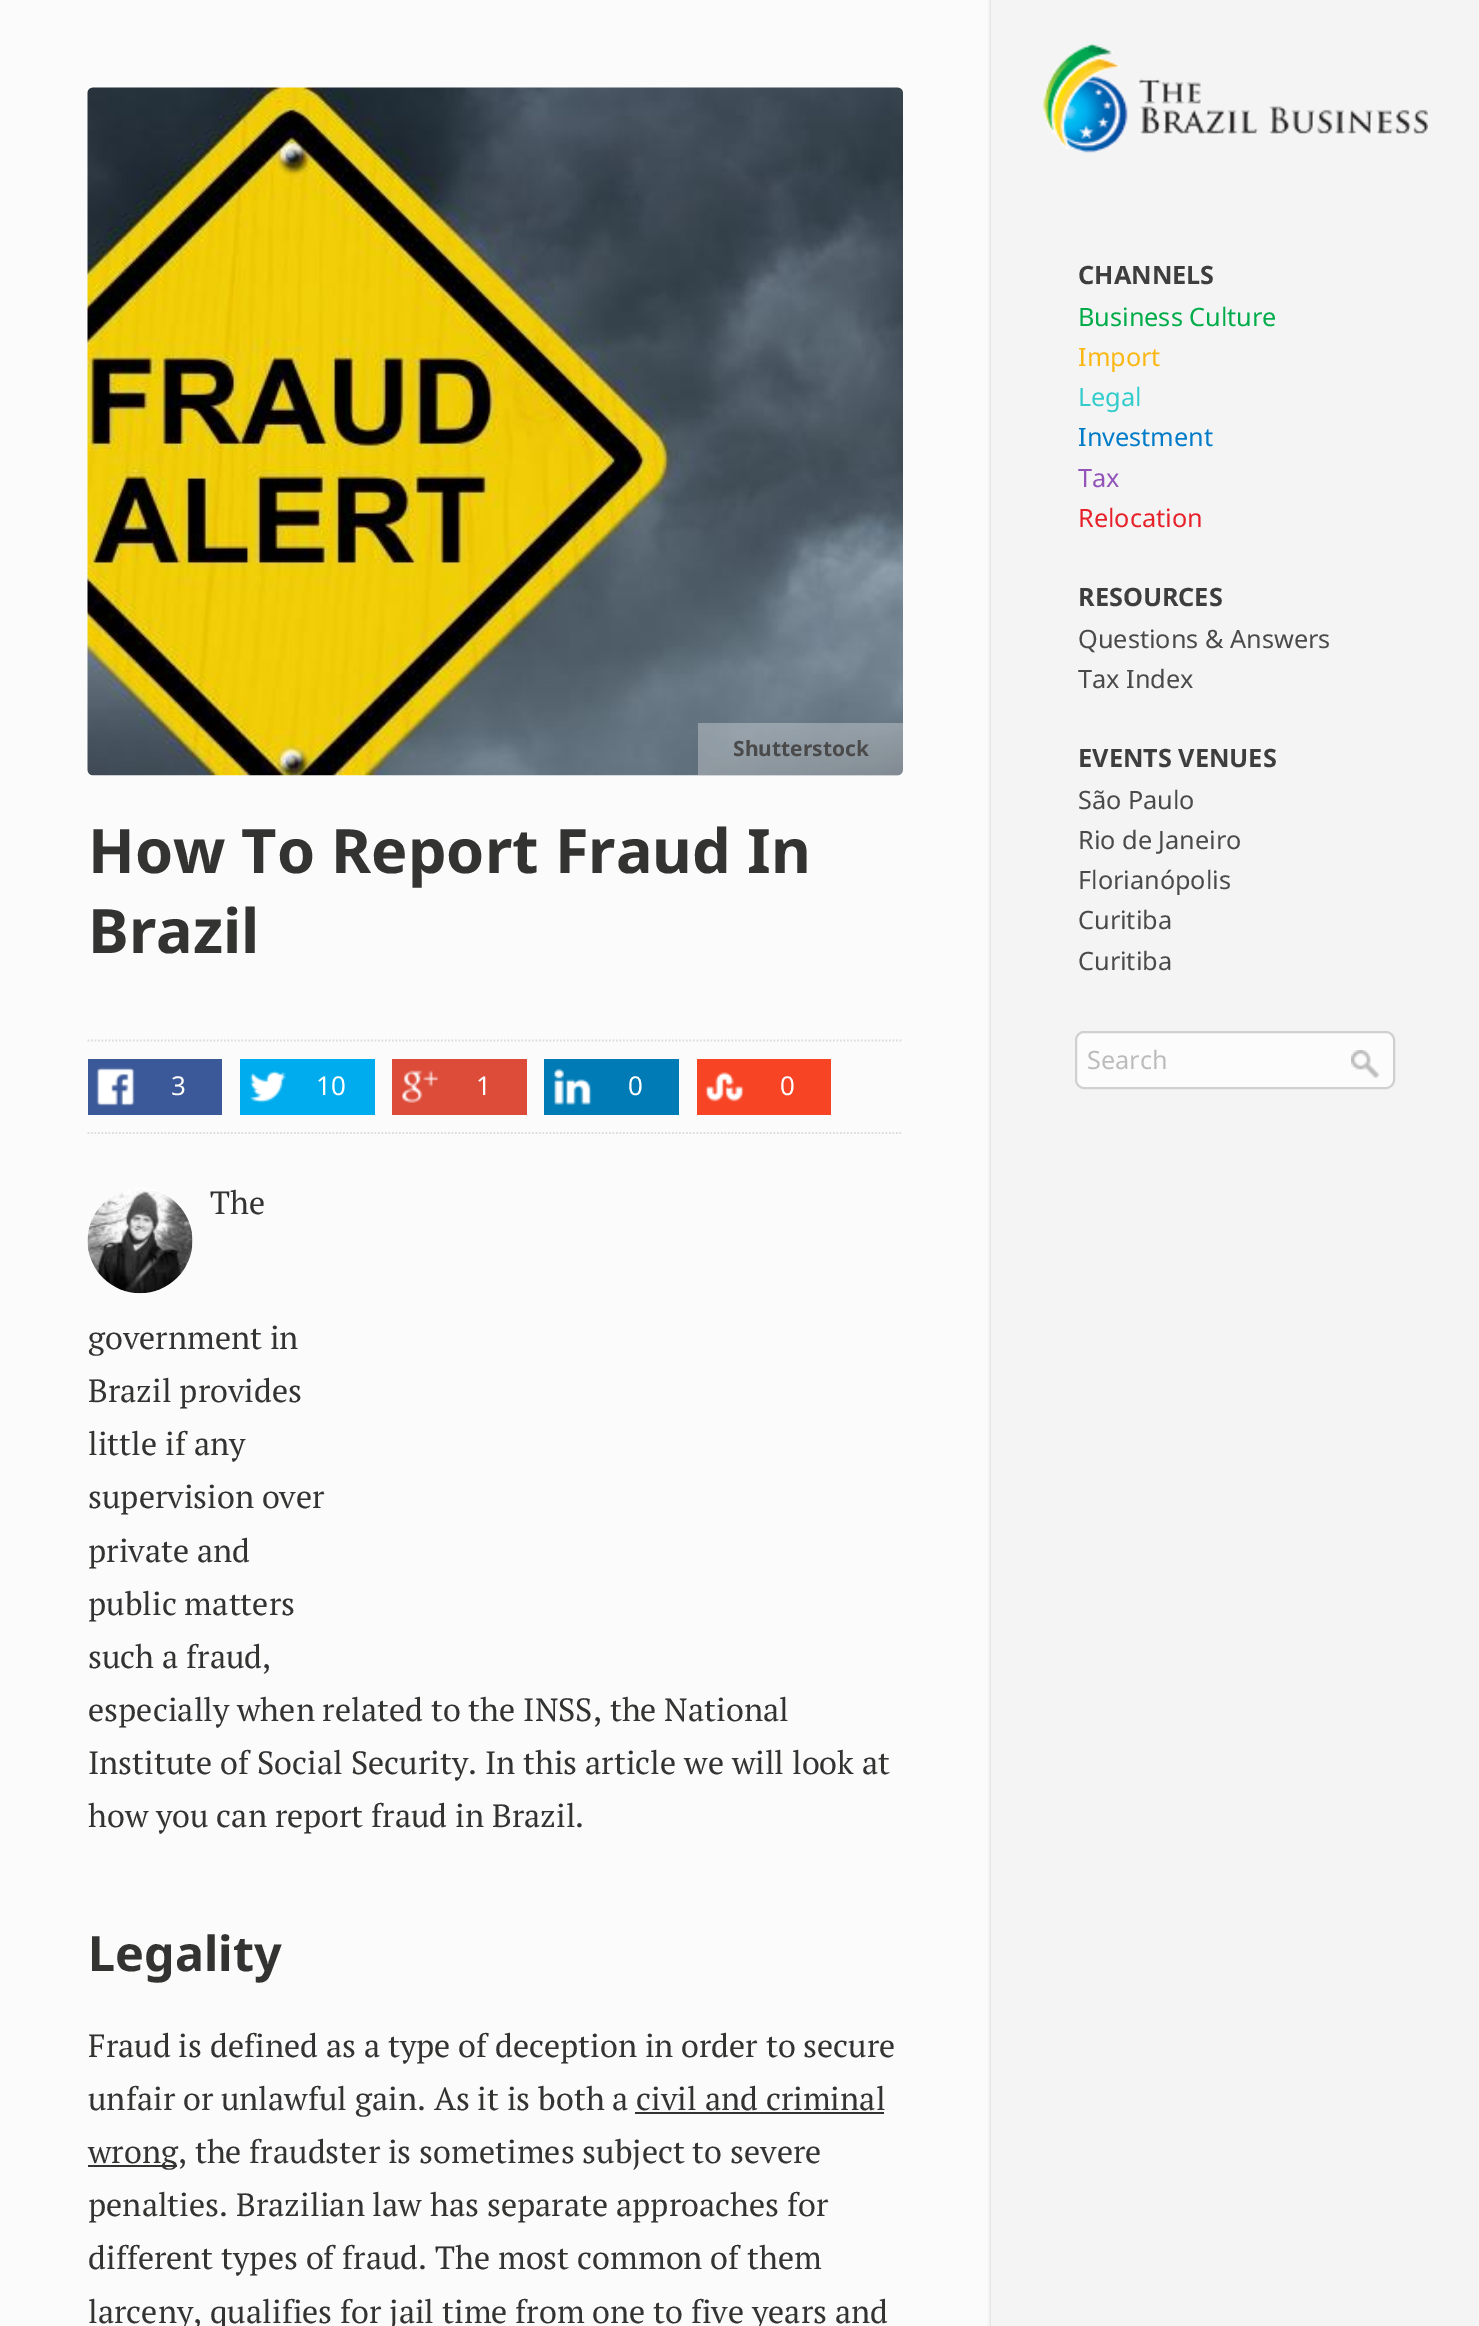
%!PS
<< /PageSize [1479 2326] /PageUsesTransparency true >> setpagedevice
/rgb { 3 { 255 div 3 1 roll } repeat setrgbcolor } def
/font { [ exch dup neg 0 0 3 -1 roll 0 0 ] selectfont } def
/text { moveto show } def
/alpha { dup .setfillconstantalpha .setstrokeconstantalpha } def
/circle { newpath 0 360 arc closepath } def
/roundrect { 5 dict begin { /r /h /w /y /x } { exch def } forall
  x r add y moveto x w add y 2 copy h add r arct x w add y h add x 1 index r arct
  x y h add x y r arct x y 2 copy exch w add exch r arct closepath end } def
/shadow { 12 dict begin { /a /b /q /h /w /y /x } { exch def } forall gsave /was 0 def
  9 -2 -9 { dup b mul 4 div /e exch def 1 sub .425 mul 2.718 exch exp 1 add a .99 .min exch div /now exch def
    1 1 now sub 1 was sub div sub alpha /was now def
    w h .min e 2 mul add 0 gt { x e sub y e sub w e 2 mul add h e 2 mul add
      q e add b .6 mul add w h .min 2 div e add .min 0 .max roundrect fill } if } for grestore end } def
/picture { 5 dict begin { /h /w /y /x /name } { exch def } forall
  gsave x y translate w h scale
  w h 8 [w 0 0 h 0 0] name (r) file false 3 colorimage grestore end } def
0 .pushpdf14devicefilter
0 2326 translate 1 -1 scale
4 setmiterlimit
251 251 251 rgb
0 0 1479 2326 rectfill
(img_01.rgb) 87 87 816 689 picture
0.3 alpha
255 255 255 rgb
698 723 205 52 rectfill
1 alpha
221 221 221 rgb
1.8 setlinewidth
[1.75 1.75] 0 setdash
87.5 1040.5 moveto 815.5 0 rlineto stroke
87.5 1133 moveto 815.5 0 rlineto stroke
59 89 152 rgb
88 1059 134 56 rectfill
(img_02.rgb) 96 1067 39 39 picture
0 172 237 rgb
240 1059 135 56 rectfill
(img_03.rgb) 250 1070 36 33 picture
221 75 57 rgb
392 1059 135 56 rectfill
(img_04.rgb) 401 1070 38 33 picture
0 123 182 rgb
544 1059 135 56 rectfill
(img_05.rgb) 553 1068 39 37 picture
247 68 37 rgb
697 1059 134 56 rectfill
(img_06.rgb) 705 1072 39 30 picture
255 255 255 rgb
140.5 1240.5 52.5 circle fill
(img_07.rgb) 87 1189 106 105 picture
51 51 50 rgb
635 2112 249 2 rectfill
88 2165 89 2 rectfill
0 0 0 rgb
991 0 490 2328 0 2 0.2 shadow
244 244 244 rgb
991 0 488 2326 rectfill
(img_08.rgb) 1043 44 385 109 picture
252 252 252 rgb
1075 1031 320 58 9 roundrect fill
(img_09.rgb) 1351 1050 28 28 picture
208 208 208 rgb
2 setlinewidth
[] 0 setdash
1076 1032 318 56 8 roundrect stroke
/NotoSans-Bold 21 font
74 74 74 rgb
(Shutterstock) 733 756 text
/NotoSans-Bold 61.25 font
51 51 50 rgb
(How To Report Fraud In) 88 873 text
(Brazil) 88 953 text
/NotoSans-Regular 26 font
255 255 255 rgb
(3) 171 1095 text
(10) 316 1095 text
(1) 476 1095 text
(0) 628 1095 text
(0) 780 1095 text
/PTSerif-Regular 32.2 font
51 51 50 rgb
(The) 210 1214 text
(government in) 88 1349 text
(Brazil provides) 88 1402 text
(little if any) 88 1455 text
(supervision over) 88 1508 text
(private and) 88 1562 text
(public matters) 88 1615 text
(such a fraud,) 88 1668 text
(especially when related to the INSS, the National) 88 1721 text
(Institute of Social Security. In this article we will look at) 88 1774 text
(how you can report fraud in Brazil.) 88 1827 text
/NotoSans-Bold 48.5 font
(Legality) 88 1971 text
/PTSerif-Regular 32.2 font
(Fraud is defined as a type of deception in order to secure) 88 2057 text
(unfair or unlawful gain. As it is both a civil and criminal) 88 2110 text
(wrong, the fraudster is sometimes subject to severe) 88 2163 text
(penalties. Brazilian law has separate approaches for) 88 2216 text
(different types of fraud. The most common of them) 88 2269 text
(larceny, qualifies for jail time from one to five years and) 88 2323 text
/NotoSans-Bold 25.25 font
62 62 62 rgb
(CHANNELS) 1078 284 text
/NotoSans-Regular 25.25 font
0 172 74 rgb
(Business Culture) 1078 326 text
251 183 20 rgb
(Import) 1078 366 text
51 204 204 rgb
(Legal) 1078 406 text
0 123 200 rgb
(Investment) 1078 446 text
147 84 186 rgb
(Tax) 1078 487 text
230 33 42 rgb
(Relocation) 1078 527 text
/NotoSans-Bold 25.25 font
62 62 62 rgb
(RESOURCES) 1078 606 text
/NotoSans-Regular 25.25 font
74 74 74 rgb
(Questions & Answers) 1078 648 text
(Tax Index) 1078 688 text
/NotoSans-Bold 25.25 font
62 62 62 rgb
(EVENTS VENUES) 1078 767 text
/NotoSans-Regular 25.25 font
74 74 74 rgb
(São Paulo) 1078 809 text
(Rio de Janeiro) 1078 849 text
(Florianópolis) 1078 889 text
(Curitiba) 1078 929 text
(Curitiba) 1078 970 text
188 188 188 rgb
(Search) 1087 1069 text
.poppdf14devicefilter showpage
